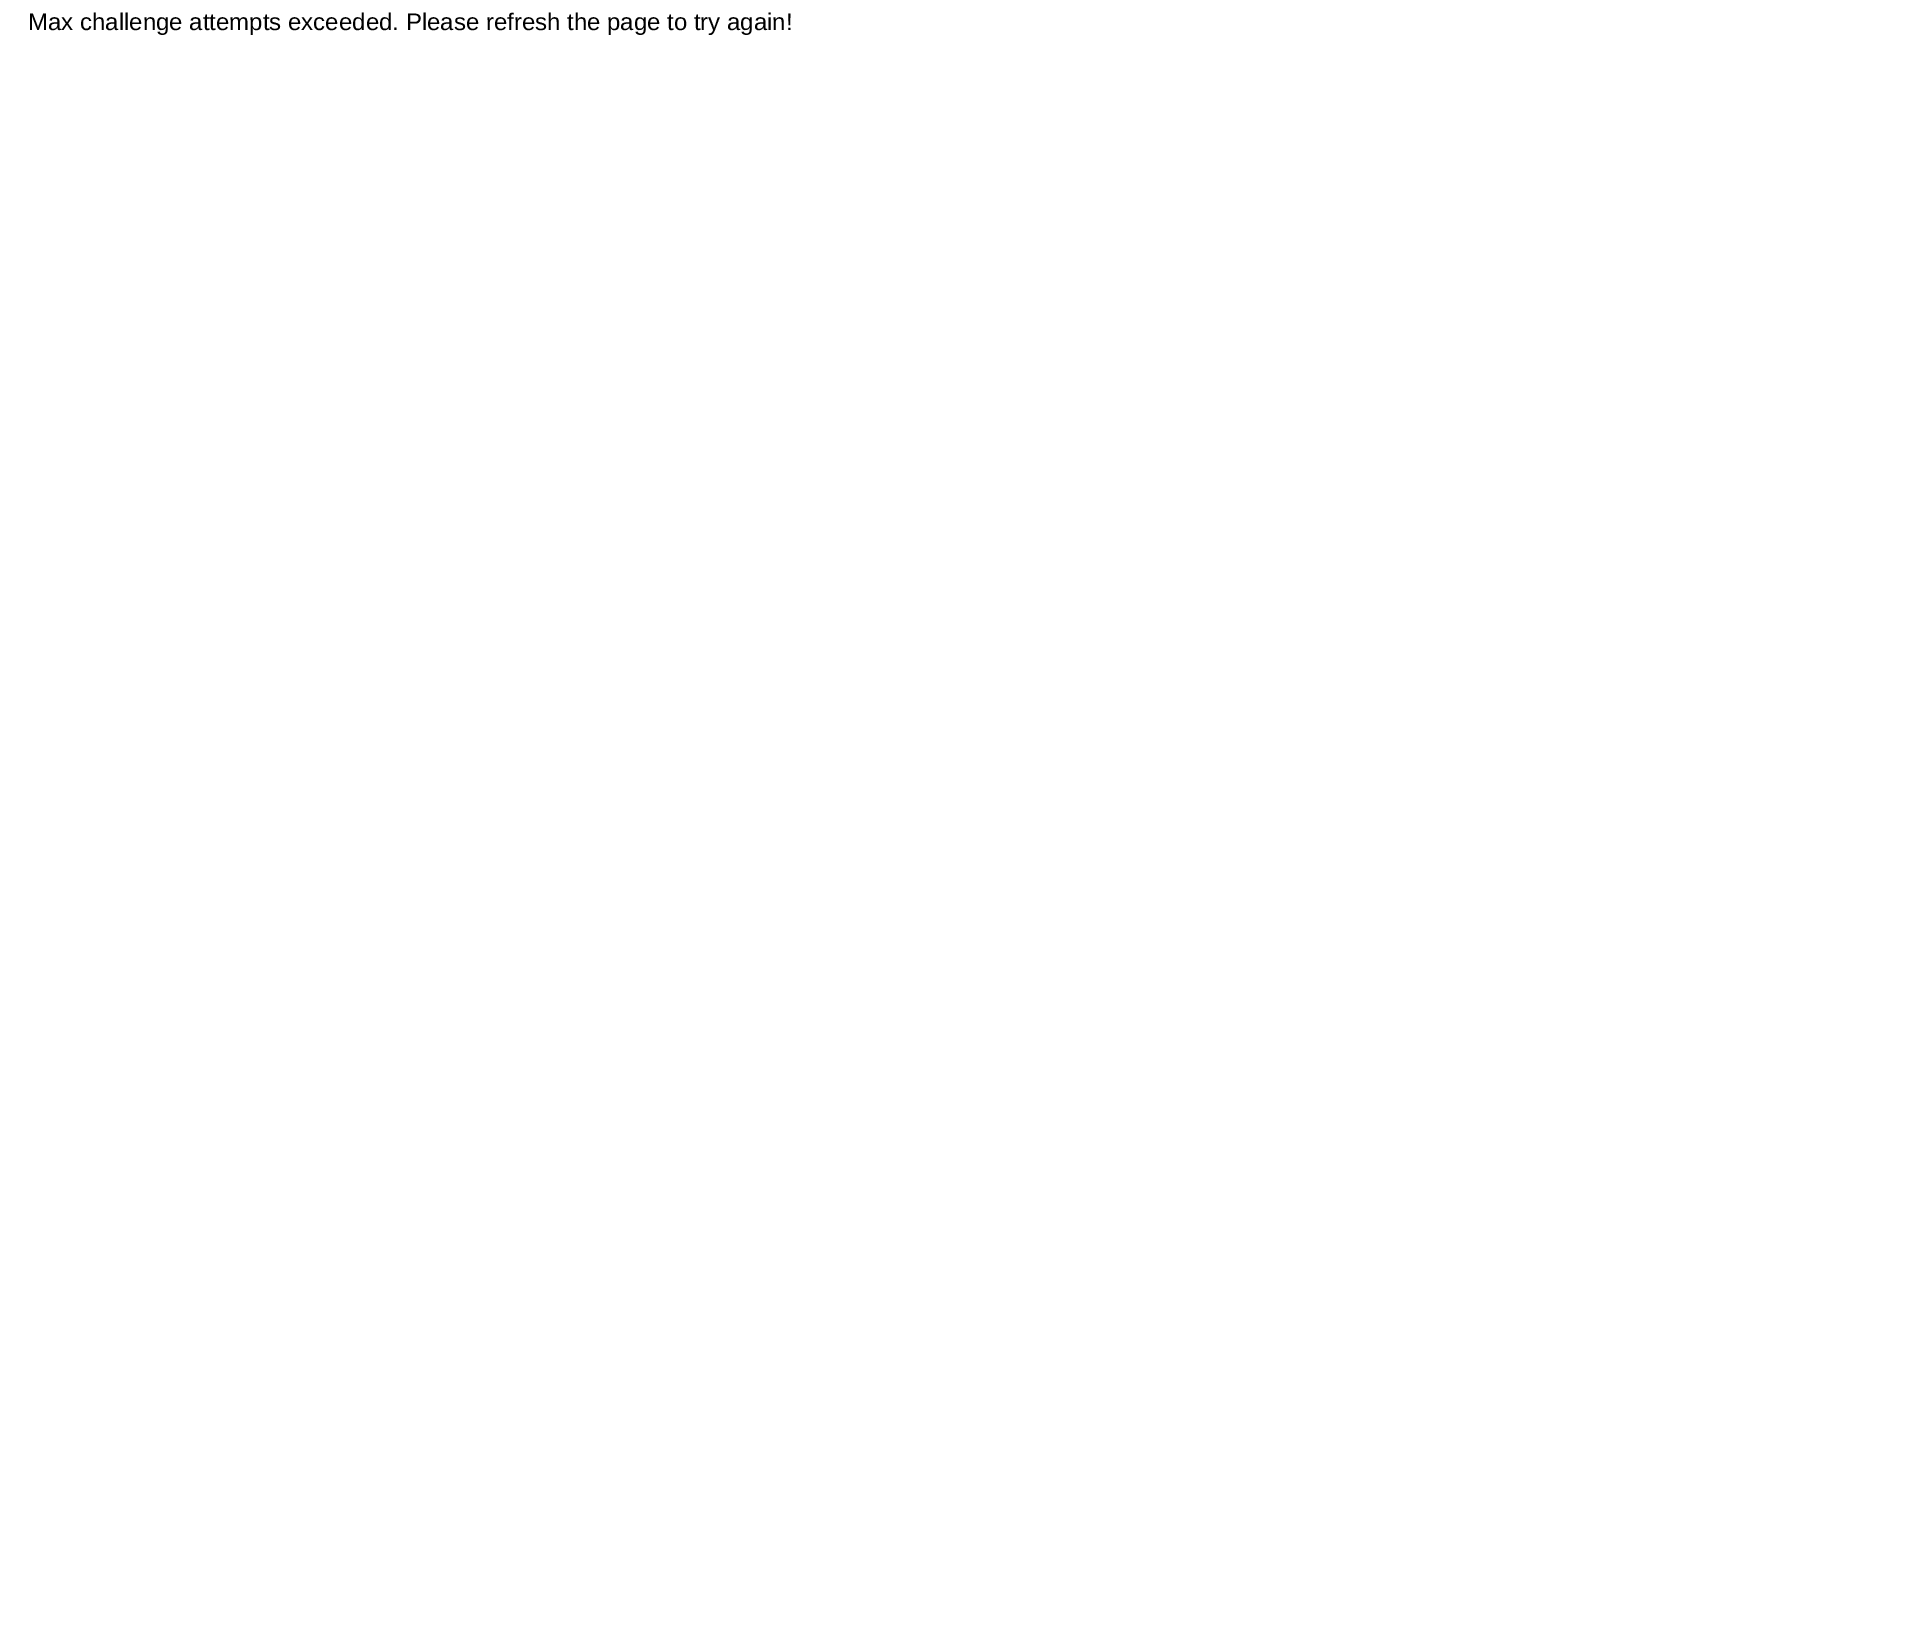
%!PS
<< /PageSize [1913 1641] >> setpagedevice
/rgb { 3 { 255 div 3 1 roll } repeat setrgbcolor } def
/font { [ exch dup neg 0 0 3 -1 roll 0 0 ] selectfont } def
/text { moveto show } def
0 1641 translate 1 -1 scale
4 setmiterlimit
255 255 255 rgb
0 0 1913 1641 rectfill
/LiberationSans-Regular 24 font
0 0 0 rgb
(Max challenge attempts exceeded. Please refresh the page to try again!) 28 30 text
showpage
